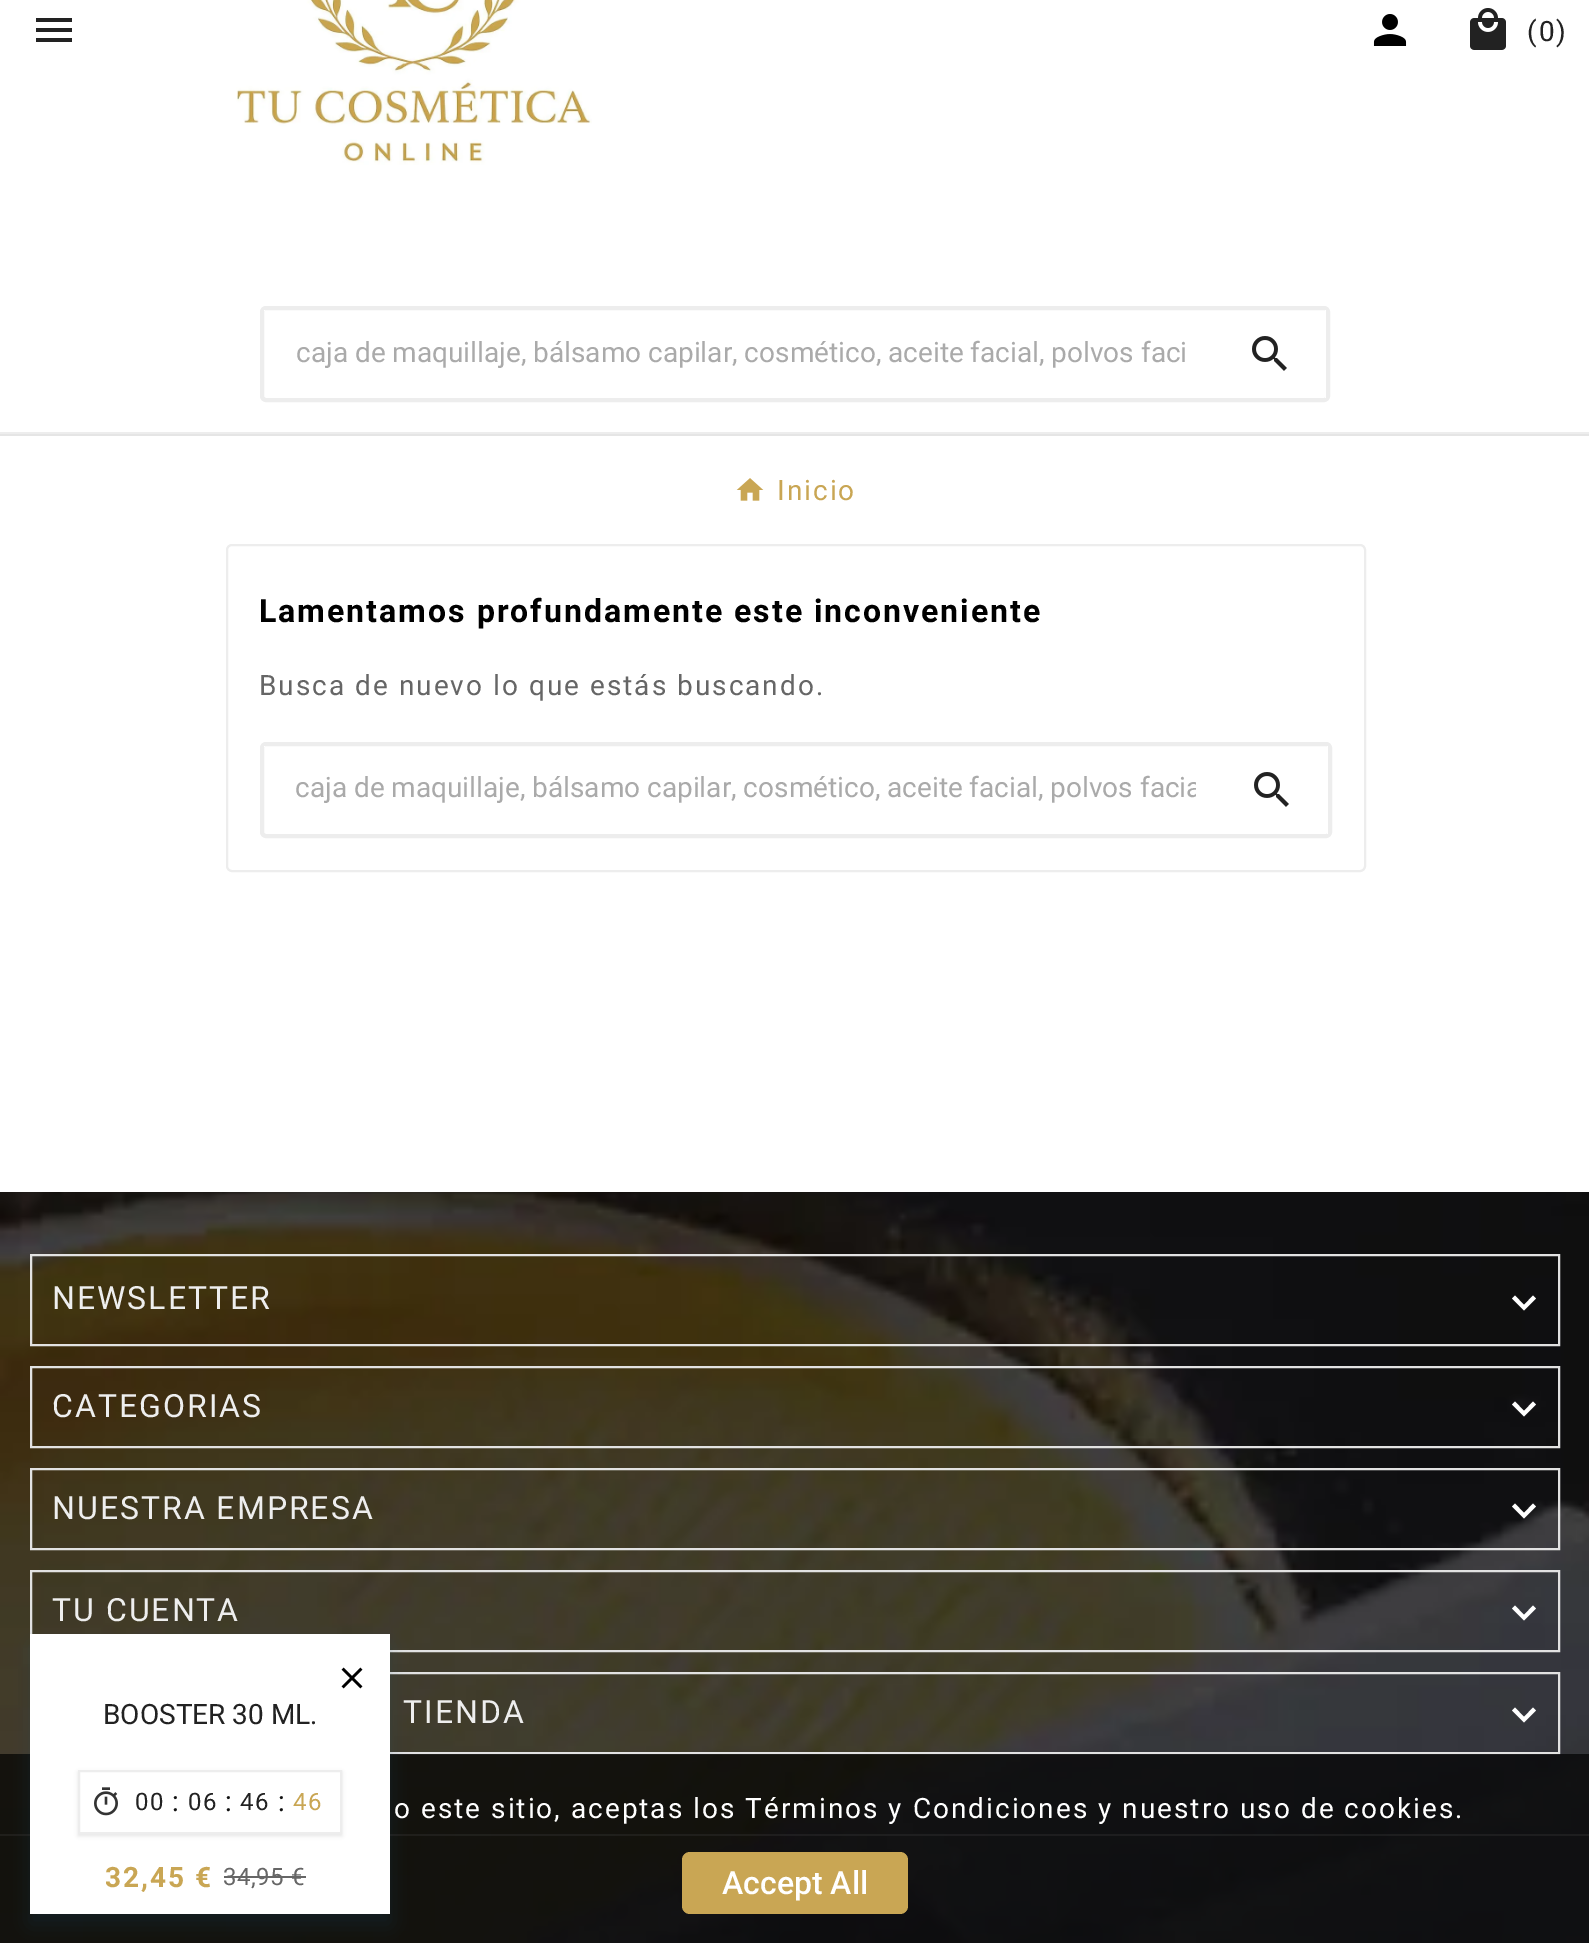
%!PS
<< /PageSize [1589 1943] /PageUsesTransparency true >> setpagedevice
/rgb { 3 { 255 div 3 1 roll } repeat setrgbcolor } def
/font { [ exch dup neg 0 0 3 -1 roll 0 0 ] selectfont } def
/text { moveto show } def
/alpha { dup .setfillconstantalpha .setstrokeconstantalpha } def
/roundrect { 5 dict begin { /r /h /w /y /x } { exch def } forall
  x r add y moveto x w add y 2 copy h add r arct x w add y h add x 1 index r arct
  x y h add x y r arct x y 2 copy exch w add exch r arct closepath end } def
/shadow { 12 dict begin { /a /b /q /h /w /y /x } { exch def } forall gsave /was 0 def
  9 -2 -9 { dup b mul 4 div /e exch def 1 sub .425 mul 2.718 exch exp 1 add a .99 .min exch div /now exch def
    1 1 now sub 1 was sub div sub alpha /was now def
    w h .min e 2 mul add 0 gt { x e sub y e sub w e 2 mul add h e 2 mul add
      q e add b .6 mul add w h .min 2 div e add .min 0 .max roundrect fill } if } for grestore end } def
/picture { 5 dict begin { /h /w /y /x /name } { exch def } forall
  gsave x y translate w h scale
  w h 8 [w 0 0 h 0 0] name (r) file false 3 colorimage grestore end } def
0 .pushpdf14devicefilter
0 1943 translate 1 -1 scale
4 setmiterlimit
255 255 255 rgb
0 0 1589 1943 rectfill
229 229 229 rgb
0 434 1589 2 rectfill
237 237 237 rgb
0 432 1589 2 rectfill
34 34 34 rgb
36 18 moveto 36 0 rlineto 0 4 rlineto -36 0 rlineto closepath 36 32 moveto 0 -4 rlineto 36 0 rlineto 0 4 rlineto closepath 36 42 moveto 0 -4 rlineto 36 0 rlineto 0 4 rlineto closepath fill
(img_01.rgb) 236 0 356 165 picture
(img_02.rgb) 1373 14 34 32 picture
(img_03.rgb) 1470 8 36 42 picture
237 237 237 rgb
4 setlinewidth
262 308 1066 92 4 roundrect stroke
255 255 255 rgb
264 310 1 1 rectfill
1325 310 1 88 rectfill
(img_04.rgb) 1252 336 35 35 picture
(img_05.rgb) 736 478 28 23 picture
237 237 237 rgb
2 setlinewidth
227 545 1138 326 5 roundrect stroke
4 setlinewidth
262 744 1068 92 4 roundrect stroke
255 255 255 rgb
264 746 1 1 rectfill
1327 746 1 88 rectfill
(img_04.rgb) 1254 772 35 35 picture
(img_06.rgb) 0 1192 1589 751 picture
0.07 alpha
0 0 0 rgb
222 1192 293 2 rectfill
1 alpha
226 226 226 rgb
2 setlinewidth
31 1255 1528 90 rectstroke
255 255 255 rgb
1515 1295.5 moveto 9 9.5 rlineto 9 -9.5 rlineto 3 3 rlineto -12 12 rlineto -12 -12 rlineto closepath fill
226 226 226 rgb
31 1367 1528 80 rectstroke
255 255 255 rgb
1515 1401.5 moveto 9 9.5 rlineto 9 -9.5 rlineto 3 3 rlineto -12 12 rlineto -12 -12 rlineto closepath fill
226 226 226 rgb
31 1469 1528 80 rectstroke
255 255 255 rgb
1515 1503.5 moveto 9 9.5 rlineto 9 -9.5 rlineto 3 3 rlineto -12 12 rlineto -12 -12 rlineto closepath fill
226 226 226 rgb
31 1571 1528 80 rectstroke
255 255 255 rgb
1515 1605.5 moveto 9 9.5 rlineto 9 -9.5 rlineto 3 3 rlineto -12 12 rlineto -12 -12 rlineto closepath fill
226 226 226 rgb
31 1673 1528 80 rectstroke
255 255 255 rgb
1515 1707.5 moveto 9 9.5 rlineto 9 -9.5 rlineto 3 3 rlineto -12 12 rlineto -12 -12 rlineto closepath fill
0.25 alpha
238 238 238 rgb
0 1834 1589 2 rectfill
0.7 alpha
0 0 0 rgb
0 1754 1589 189 rectfill
1 alpha
23 84 116 rgb
30 1644 360 280 0 10 0.18 shadow
255 255 255 rgb
30 1634 360 280 rectfill
(img_07.rgb) 341 1667 22 22 picture
gsave
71 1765 moveto 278 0 rlineto 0 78 rlineto -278 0 rlineto closepath 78 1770 moveto 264 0 rlineto 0 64 rlineto -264 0 rlineto closepath eoclip newpath
0 0 0 rgb
78 1772 264 64 0 2 0.1 shadow
grestore
237 237 237 rgb
79 1771 262 62 rectstroke
(img_08.rgb) 94 1787 24 29 picture
102 102 102 rgb
224 1876 82 2 rectfill
201 166 84 rgb
682 1852 226 62 8 roundrect fill
/Roboto-Regular 28 font
34 34 34 rgb
1527 41 moveto 2 0 (\(0\)) ashow
170 170 170 rgb
(caja de maquillaje, bálsamo capilar, cosmético, aceite facial, polvos faci) 296 362 text
201 166 84 rgb
777 500 moveto 2 0 (Inicio) ashow
/Roboto-Bold 32 font
0 0 0 rgb
259 622 moveto 2 0 (Lamentamos profundamente este inconveniente) ashow
/Roboto-Regular 28 font
102 102 102 rgb
259 695 moveto 2 0 (Busca de nuevo lo que estás buscando.) ashow
gsave
296 772 900 32 rectclip
170 170 170 rgb
(caja de maquillaje, bálsamo capilar, cosmético, aceite facial, polvos facia) 295 797 text
grestore
/Roboto-Regular 32 font
238 238 238 rgb
52 1309 moveto 2 0 (NEWSLETTER) ashow
52 1417 moveto 2 0 (CATEGORIAS) ashow
52 1519 moveto 2 0 (NUESTRA EMPRESA) ashow
52 1621 moveto 2 0 (TU CUENTA) ashow
403 1723 moveto 2 0 (TIENDA) ashow
/Roboto-Regular 28 font
34 34 34 rgb
(BOOSTER 30 ML.) 103 1724 text
/Roboto-Regular 24 font
135 1810 moveto 2 0 (00) ashow
/Roboto-Regular 28 font
17 17 17 rgb
172 1811 moveto 2 0 (:) ashow
/Roboto-Regular 24 font
34 34 34 rgb
188 1810 moveto 2 0 (06) ashow
/Roboto-Regular 28 font
17 17 17 rgb
225 1811 moveto 2 0 (:) ashow
/Roboto-Regular 24 font
34 34 34 rgb
240 1810 moveto 2 0 (46) ashow
/Roboto-Regular 28 font
17 17 17 rgb
278 1811 moveto 2 0 (:) ashow
/Roboto-Regular 24 font
201 166 84 rgb
293 1810 moveto 2 0 (46) ashow
/Roboto-Bold 28 font
105 1887 moveto 2 0 (32,45 €) ashow
/Roboto-Regular 24 font
102 102 102 rgb
223 1885 moveto 0.5 0 (34,95 €) ashow
/Roboto-Regular 28 font
255 255 255 rgb
394 1818 moveto 2 0 (o este sitio, aceptas los Términos y Condiciones y nuestro uso de cookies.) ashow
/Roboto-Medium 32 font
(Accept All) 722 1894 text
.poppdf14devicefilter showpage
